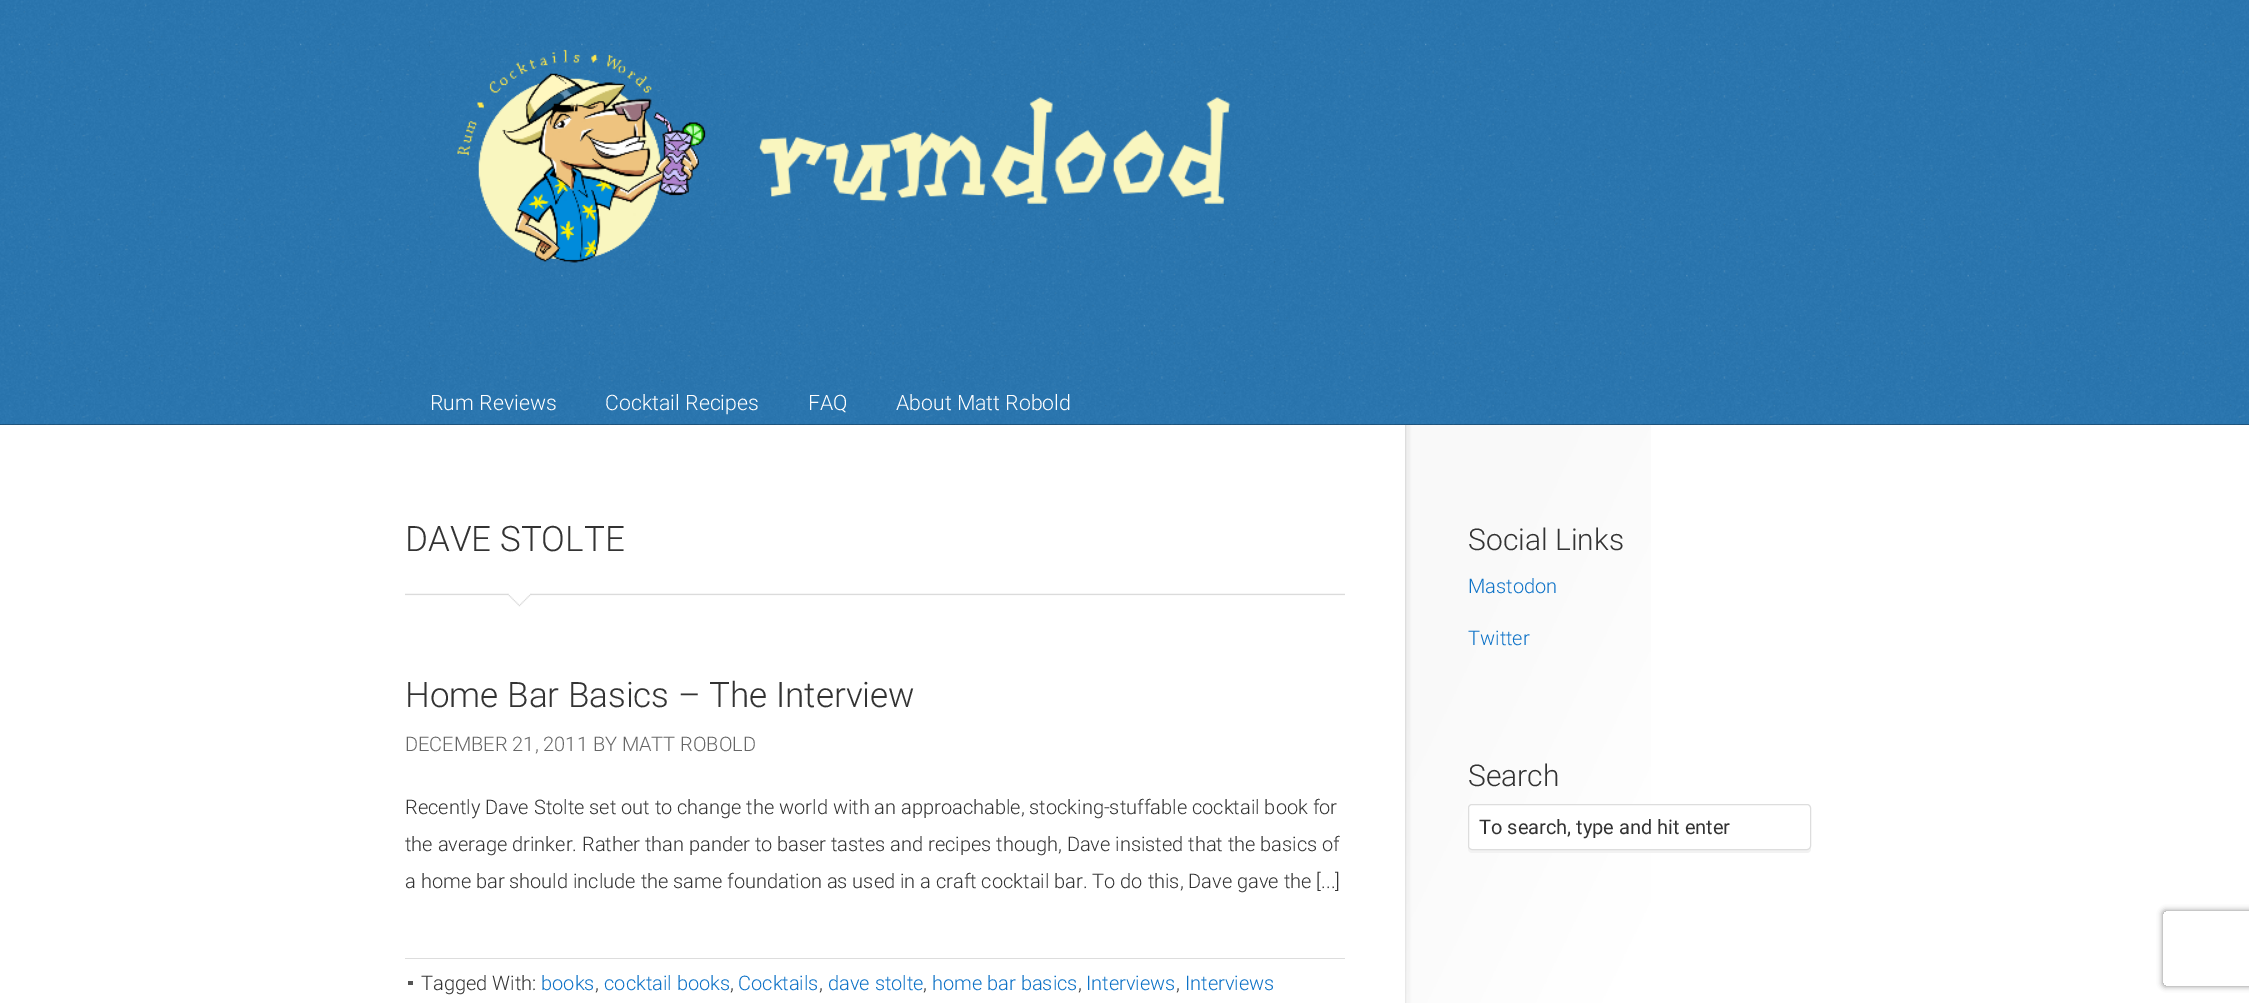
%!PS
<< /PageSize [2249 1003] /PageUsesTransparency true >> setpagedevice
/rgb { 3 { 255 div 3 1 roll } repeat setrgbcolor } def
/font { [ exch dup neg 0 0 3 -1 roll 0 0 ] selectfont } def
/text { moveto show } def
/alpha { dup .setfillconstantalpha .setstrokeconstantalpha } def
/roundrect { 5 dict begin { /r /h /w /y /x } { exch def } forall
  x r add y moveto x w add y 2 copy h add r arct x w add y h add x 1 index r arct
  x y h add x y r arct x y 2 copy exch w add exch r arct closepath end } def
/shadow { 12 dict begin { /a /b /q /h /w /y /x } { exch def } forall gsave /was 0 def
  9 -2 -9 { dup b mul 4 div /e exch def 1 sub .425 mul 2.718 exch exp 1 add a .99 .min exch div /now exch def
    1 1 now sub 1 was sub div sub alpha /was now def
    w h .min e 2 mul add 0 gt { x e sub y e sub w e 2 mul add h e 2 mul add
      q e add b .6 mul add w h .min 2 div e add .min 0 .max roundrect fill } if } for grestore end } def
/picture { 5 dict begin { /h /w /y /x /name } { exch def } forall
  gsave x y translate w h scale
  w h 8 [w 0 0 h 0 0] name (r) file false 3 colorimage grestore end } def
0 .pushpdf14devicefilter
0 1003 translate 1 -1 scale
4 setmiterlimit
255 255 255 rgb
0 0 2249 1003 rectfill
41 118 176 rgb
0 0 2249 425 rectfill
(img_01.rgb) 0 0 2249 425 picture
0.28 alpha
0 0 0 rgb
0 424 2249 1 rectfill
1 alpha
(img_02.rgb) 457 49 774 214 picture
(img_03.rgb) 1405 425 246 578 picture
(img_04.rgb) 405 593 940 14 picture
221 221 221 rgb
405 958 940 1 rectfill
85 85 85 rgb
408 981 5 4 rectfill
242 242 242 rgb
1468 848 moveto 0 1 rlineto 0 2 2 4 4 4 rcurveto 335 0 rlineto 2 0 4 -2 4 -4 rcurveto 0 -1 rlineto -1 1 -2 2 -3 2 rcurveto -337 0 rlineto -1 0 -2 -1 -3 -2 rcurveto closepath fill
255 255 255 rgb
1468.5 804.5 342 45 3.5 roundrect gsave fill grestore
221 221 221 rgb
stroke
gsave
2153 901 moveto 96 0 rlineto 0 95 rlineto -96 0 rlineto closepath 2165.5 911 moveto 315 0 rlineto 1.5 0 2.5 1 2.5 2.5 rcurveto 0 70 rlineto 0 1.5 -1 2.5 -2.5 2.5 rcurveto -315 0 rlineto -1.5 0 -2.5 -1 -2.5 -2.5 rcurveto 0 -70 rlineto 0 -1.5 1 -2.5 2.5 -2.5 rcurveto closepath eoclip newpath
128 128 128 rgb
2163 911 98 75 2.5 3 1 shadow
grestore
/Roboto-Light 21.25 font
255 255 255 rgb
(Rum Reviews) 430 410 text
(Cocktail Recipes) 605 410 text
(FAQ) 808 410 text
(About Matt Robold) 896 410 text
/Roboto-Light 35 font
51 51 51 rgb
(DAVE STOLTE) 405 551 text
(Home Bar Basics – The Interview) 405 707 text
/Roboto-Light 20 font
102 102 102 rgb
(DECEMBER 21, 2011 BY MATT ROBOLD) 405 751 text
51 51 51 rgb
(Recently Dave Stolte set out to change the world with an approachable, stocking-stuffable cocktail book for) 405 814 text
(the average drinker. Rather than pander to baser tastes and recipes though, Dave insisted that the basics of) 405 851 text
(a home bar should include the same foundation as used in a craft cocktail bar. To do this, Dave gave the [...]) 405 888 text
(Tagged With:) 421 990 text
13 114 199 rgb
(books) 541 990 text
51 51 51 rgb
(,) 595 990 text
13 114 199 rgb
(cocktail books) 604 990 text
51 51 51 rgb
(,) 730 990 text
13 114 199 rgb
(Cocktails) 738 990 text
51 51 51 rgb
(,) 819 990 text
13 114 199 rgb
(dave stolte) 828 990 text
51 51 51 rgb
(,) 923 990 text
13 114 199 rgb
(home bar basics) 932 990 text
51 51 51 rgb
(,) 1078 990 text
13 114 199 rgb
(Interviews) 1086 990 text
51 51 51 rgb
(,) 1176 990 text
13 114 199 rgb
(Interviews) 1185 990 text
/Roboto-Light 30 font
51 51 51 rgb
(Social Links) 1468 550 text
/Roboto-Light 20 font
13 114 199 rgb
(Mastodon) 1468 593 text
(Twitter) 1468 645 text
/Roboto-Light 30 font
51 51 51 rgb
(Search) 1468 786 text
/Roboto-Regular 20 font
(To search, type and hit enter) 1479 834 text
.poppdf14devicefilter showpage
